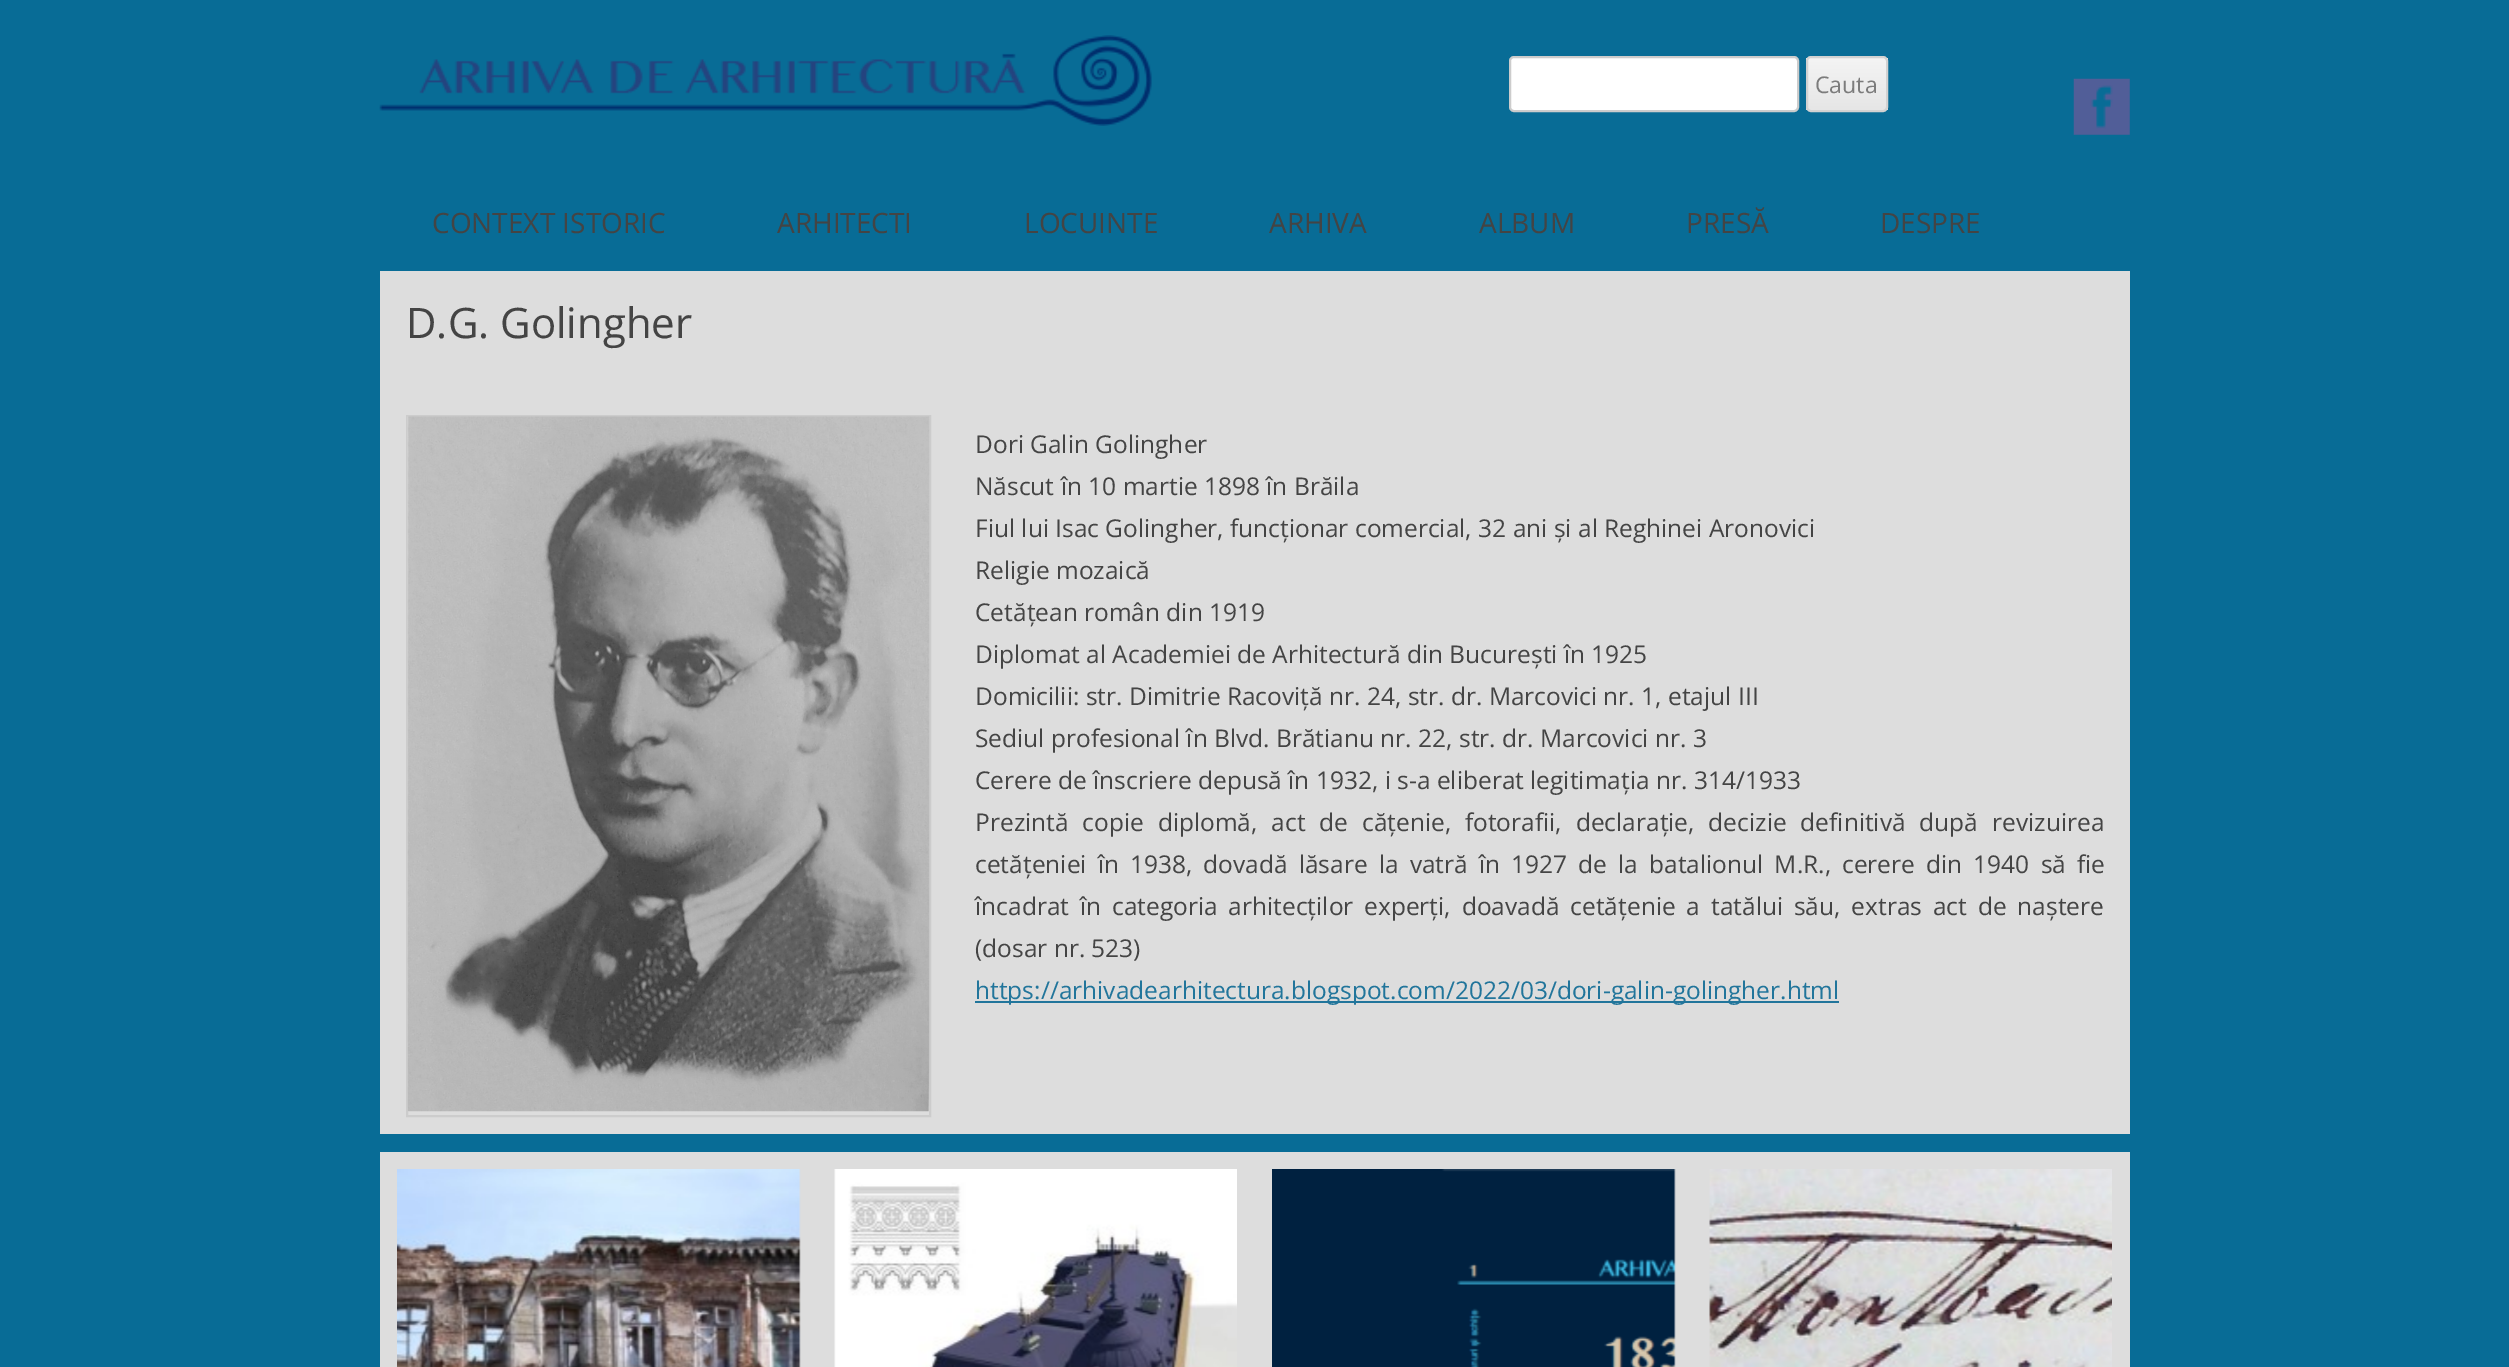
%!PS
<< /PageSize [2509 1367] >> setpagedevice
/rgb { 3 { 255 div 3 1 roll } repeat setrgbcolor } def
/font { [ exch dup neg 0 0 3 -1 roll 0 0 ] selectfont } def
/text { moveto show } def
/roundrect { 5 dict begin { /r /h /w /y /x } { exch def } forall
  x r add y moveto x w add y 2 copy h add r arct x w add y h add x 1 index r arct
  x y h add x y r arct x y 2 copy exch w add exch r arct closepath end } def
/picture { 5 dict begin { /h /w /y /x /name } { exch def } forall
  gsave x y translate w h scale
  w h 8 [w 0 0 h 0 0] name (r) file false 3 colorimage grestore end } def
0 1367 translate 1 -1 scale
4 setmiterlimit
8 108 150 rgb
0 0 2509 1367 rectfill
(img_01.rgb) 379 35 773 91 picture
255 255 255 rgb
1510 57 288 54 4 roundrect gsave fill grestore
204 204 204 rgb
2 setlinewidth
stroke
gsave
1806 56 82 56 5 roundrect clip newpath
gsave 1806 58 moveto 82 0 rlineto 0 52 rlineto -82 0 rlineto closepath clip newpath
<< /ShadingType 2 /ColorSpace /DeviceRGB /Coords [1847 58 1847 110] /Extend [true true] /Function << /FunctionType 2 /Domain [0 1] /C0 [0.957 0.957 0.957] /C1 [0.902 0.902 0.902] /N 1 >> >> shfill grestore
grestore
210 210 210 rgb
1807 57 80 54 4 roundrect stroke
(img_02.rgb) 2073 78 57 57 picture
221 221 221 rgb
380 271 1750 863 rectfill
204 204 204 rgb
407 416 523 700 rectstroke
(img_03.rgb) 407 416 523 696 picture
33 117 155 rgb
975 1001 864 2 rectfill
221 221 221 rgb
380 1152 1750 215 rectfill
(img_04.rgb) 397 1169 404 198 picture
(img_05.rgb) 834 1169 403 198 picture
(img_06.rgb) 1272 1169 404 198 picture
(img_07.rgb) 1709 1169 403 198 picture
/OpenSans-Regular 23 font
124 124 124 rgb
(Cauta) 1815 93 text
/OpenSans-Regular 28 font
68 68 68 rgb
(CONTEXT ISTORIC) 432 233 text
(ARHITECTI) 777 233 text
(LOCUINTE) 1024 233 text
(ARHIVA) 1269 233 text
(ALBUM) 1479 233 text
(PRESĂ) 1686 233 text
(DESPRE) 1880 233 text
/OpenSans-Regular 42 font
(D.G. Golingher) 406 338 text
/OpenSans-Regular 24.5 font
(Dori Galin Golingher) 975 453 text
(Născut în 10 martie 1898 în Brăila) 975 495 text
(Fiul lui Isac Golingher, funcționar comercial, 32 ani și al Reghinei Aronovici) 975 537 text
(Religie mozaică) 975 579 text
(Cetățean român din 1919) 975 621 text
(Diplomat al Academiei de Arhitectură din București în 1925) 975 663 text
(Domicilii: str. Dimitrie Racoviță nr. 24, str. dr. Marcovici nr. 1, etajul III) 975 705 text
(Sediul profesional în Blvd. Brătianu nr. 22, str. dr. Marcovici nr. 3) 975 747 text
(Cerere de înscriere depusă în 1932, i s-a eliberat legitimația nr. 314/1933) 975 789 text
975 831 moveto 7.5 0 32 (Prezintă copie diplomă, act de cățenie, fotorafii, declarație, decizie definitivă după revizuirea) widthshow
975 873 moveto 4.75 0 32 (cetățeniei în 1938, dovadă lăsare la vatră în 1927 de la batalionul M.R., cerere din 1940 să fie) widthshow
975 915 moveto 4.5 0 32 (încadrat în categoria arhitecților experți, doavadă cetățenie a tatălui său, extras act de naștere) widthshow
(\(dosar nr. 523\)) 975 957 text
33 117 155 rgb
(https://arhivadearhitectura.blogspot.com/2022/03/dori-galin-golingher.html) 975 999 text
showpage
